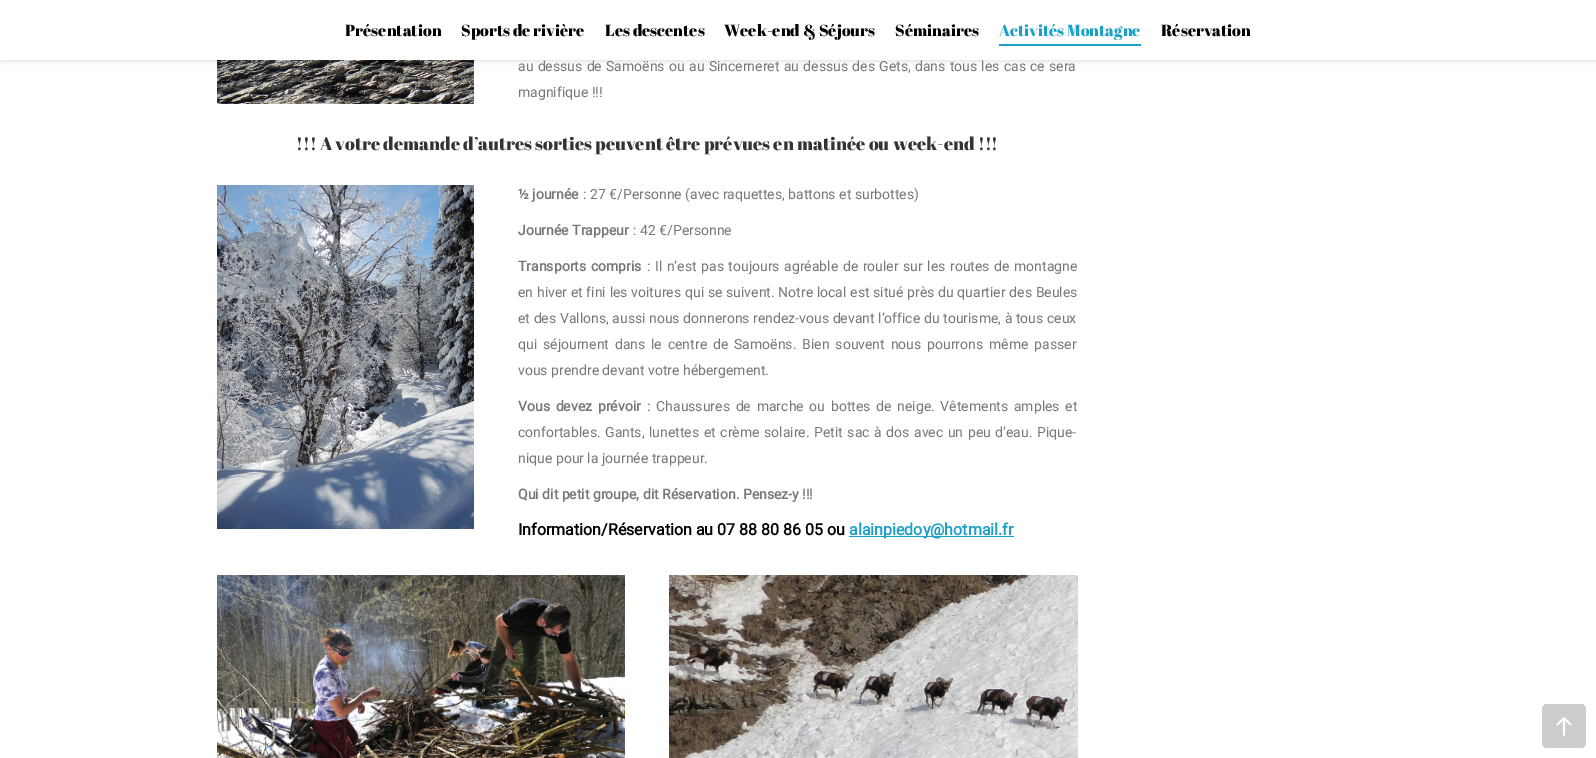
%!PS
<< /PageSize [1596 758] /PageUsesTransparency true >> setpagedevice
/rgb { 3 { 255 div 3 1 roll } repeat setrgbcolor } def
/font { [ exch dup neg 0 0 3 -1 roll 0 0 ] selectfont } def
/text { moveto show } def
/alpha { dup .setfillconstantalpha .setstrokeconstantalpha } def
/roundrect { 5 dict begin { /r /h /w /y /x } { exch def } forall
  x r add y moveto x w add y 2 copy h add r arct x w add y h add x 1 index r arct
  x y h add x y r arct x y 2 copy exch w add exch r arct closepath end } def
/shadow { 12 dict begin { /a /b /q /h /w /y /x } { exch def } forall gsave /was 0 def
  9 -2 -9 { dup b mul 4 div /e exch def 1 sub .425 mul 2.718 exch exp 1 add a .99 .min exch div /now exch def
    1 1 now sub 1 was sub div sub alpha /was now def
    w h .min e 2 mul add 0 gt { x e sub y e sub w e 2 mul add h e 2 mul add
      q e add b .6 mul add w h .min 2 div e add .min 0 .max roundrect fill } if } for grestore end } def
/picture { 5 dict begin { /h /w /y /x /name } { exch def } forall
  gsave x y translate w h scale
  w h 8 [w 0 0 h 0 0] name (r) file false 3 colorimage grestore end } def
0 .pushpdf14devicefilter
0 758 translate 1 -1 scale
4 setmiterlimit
255 255 255 rgb
0 0 1596 758 rectfill
(img_01.rgb) 217 60 257 44 picture
0 0 0 rgb
0 0 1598 62 0 2 0.1 shadow
255 255 255 rgb
0 0 1596 60 rectfill
26 160 198 rgb
999 44 142 2 rectfill
(img_02.rgb) 217 185 257 344 picture
849 536 165 1 rectfill
(img_03.rgb) 217 575 408 183 picture
(img_04.rgb) 669 575 409 183 picture
204 204 204 rgb
1542 704 44 44 5 roundrect fill
(img_05.rgb) 1556 717 16 19 picture
/AbrilFatface-Regular 16 font
0 0 0 rgb
(Présentation) 345 36 text
(Sports de rivière) 461 36 text
(Les descentes) 605 36 text
(Week-end & Séjours) 724 36 text
(Séminaires) 895 36 text
26 160 198 rgb
(Activités Montagne) 999 36 text
0 0 0 rgb
(Réservation) 1161 36 text
/Roboto-Regular 14 font
119 119 119 rgb
518 71 moveto 0.8 0 32 (au dessus de Samoëns ou au Sincerneret au dessus des Gets, dans tous les cas ce sera) widthshow
(magnifique !!!) 518 97 text
/AbrilFatface-Regular 18 font
51 51 51 rgb
(!!! A votre demande d’autres sorties peuvent être prévues en matinée ou week-end !!!) 296 150 text
/Roboto-Bold 14 font
119 119 119 rgb
(½ journée) 518 199 text
/Roboto-Regular 14 font
(: 27 €/Personne \(avec raquettes, battons et surbottes\)) 583 199 text
/Roboto-Bold 14 font
(Journée Trappeur) 518 235 text
/Roboto-Regular 14 font
(: 42 €/Personne) 633 235 text
/Roboto-Bold 14 font
518 271 moveto 1 0 32 (Transports compris) widthshow
/Roboto-Regular 14 font
647 271 moveto 1.1 0 32 (: Il n’est pas toujours agréable de rouler sur les routes de montagne) widthshow
518 297 moveto 0.25 0 32 (en hiver et fini les voitures qui se suivent. Notre local est situé près du quartier des Beules) widthshow
518 323 moveto 0.1 0 32 (et des Vallons, aussi nous donnerons rendez-vous devant l’office du tourisme, à tous ceux) widthshow
518 349 moveto 2.4 0 32 (qui séjournent dans le centre de Samoëns. Bien souvent nous pourrons même passer) widthshow
(vous prendre devant votre hébergement.) 518 375 text
/Roboto-Bold 14 font
518 411 moveto 2.25 0 32 (Vous devez prévoir) widthshow
/Roboto-Regular 14 font
647 411 moveto 2.25 0 32 (: Chaussures de marche ou bottes de neige. Vêtements amples et) widthshow
518 437 moveto 1.1 0 32 (confortables. Gants, lunettes et crème solaire. Petit sac à dos avec un peu d’eau. Pique-) widthshow
(nique pour la journée trappeur.) 518 463 text
/Roboto-Bold 14 font
(Qui dit petit groupe, dit Réservation. Pensez-y !!!) 518 499 text
/Roboto-Bold 16 font
0 0 0 rgb
(Information/Réservation au 07 88 80 86 05 ou) 518 535 text
26 160 198 rgb
(alainpiedoy@hotmail.fr) 849 535 text
.poppdf14devicefilter showpage
